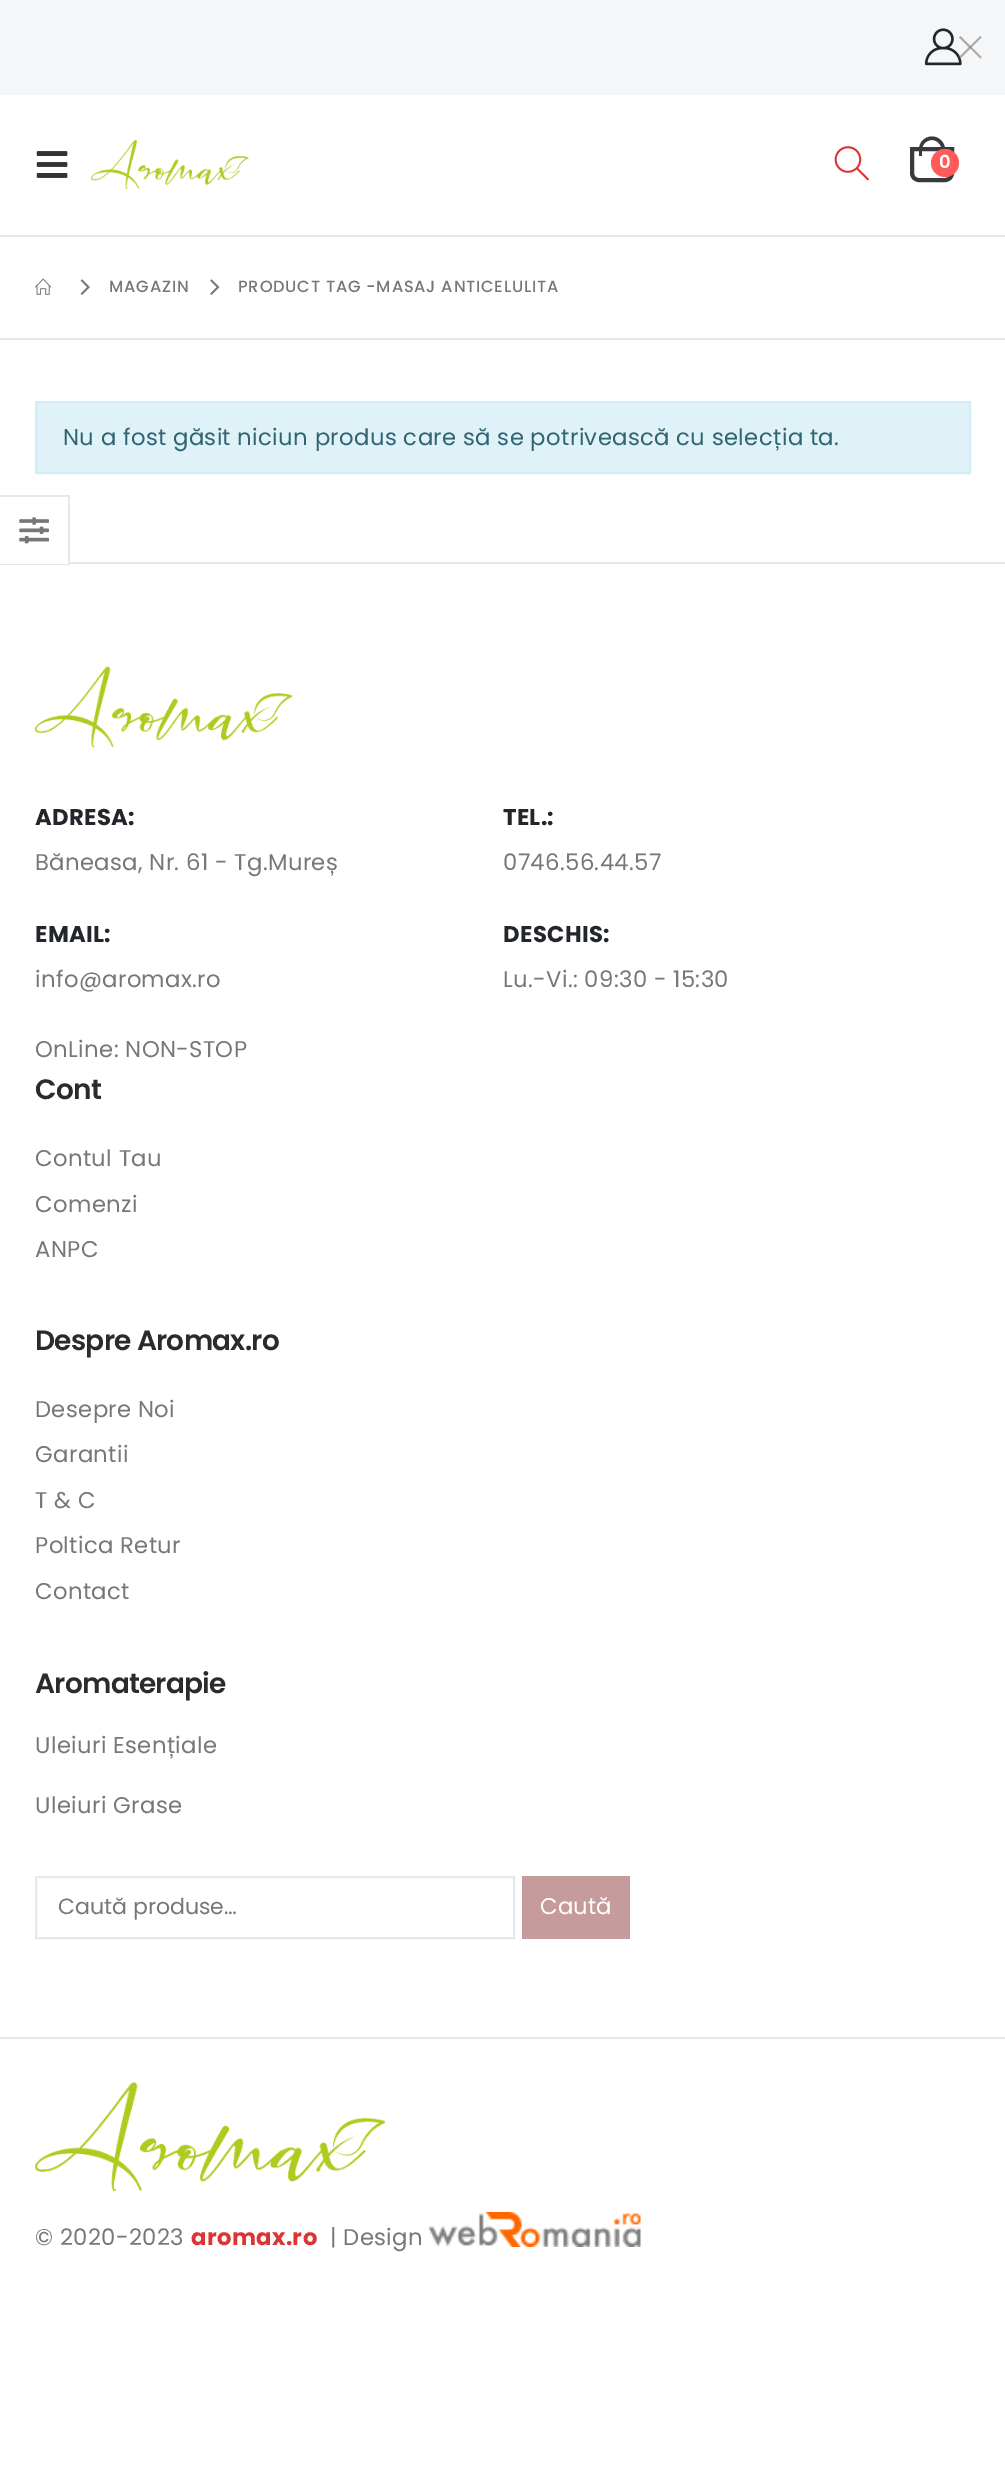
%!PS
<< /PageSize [1005 2477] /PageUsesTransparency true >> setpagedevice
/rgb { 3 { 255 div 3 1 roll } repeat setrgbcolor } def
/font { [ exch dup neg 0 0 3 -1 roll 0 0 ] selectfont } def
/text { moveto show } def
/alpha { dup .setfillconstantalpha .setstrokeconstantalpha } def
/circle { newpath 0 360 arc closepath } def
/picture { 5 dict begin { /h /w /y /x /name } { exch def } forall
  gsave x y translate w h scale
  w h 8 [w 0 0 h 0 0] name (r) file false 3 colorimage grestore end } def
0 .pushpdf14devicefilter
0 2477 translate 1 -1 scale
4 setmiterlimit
255 255 255 rgb
0 0 1005 2477 rectfill
245 246 248 rgb
0 0 1005 95 rectfill
(img_01.rgb) 924 28 38 38 picture
171 171 172 rgb
960.5 36 moveto 21 21 rlineto -1 1.5 rlineto -21.5 -21 rlineto closepath fill
0.65 alpha
131 131 131 rgb
980.5 36 moveto 1 1.5 rlineto -21 21 rlineto -1.5 -1.5 rlineto closepath fill
1 alpha
(img_02.rgb) 36 151 32 27 picture
(img_03.rgb) 91 140 158 49 picture
(img_04.rgb) 834 146 35 35 picture
56 59 62 rgb
4 setlinewidth
912 149 moveto 40 0 rlineto 0 24 rlineto 0 4 -3 7 -7 7 rcurveto -26 0 rlineto -4 0 -7 -3 -7 -7 rcurveto closepath stroke
932 136.5 moveto 7 0 13 6 13 13 rcurveto 0 6.5 rlineto -26 0 rlineto 0 -6.5 rlineto 0 -7 5.5 -13 13 -13 rcurveto closepath 932 140 moveto 5 0 9.5 4.5 9.5 9.5 rcurveto 0 6.5 rlineto -19.5 0 rlineto 0 -6.5 rlineto 0 -5 4.5 -9.5 10 -9.5 rcurveto closepath eofill
255 91 91 rgb
945 163 14 circle fill
231 231 231 rgb
0 235 1005 2 rectfill
0 338 1005 2 rectfill
(img_05.rgb) 35 278 17 17 picture
(img_06.rgb) 80 279 10 16 picture
(img_07.rgb) 210 279 10 16 picture
222 242 248 rgb
36 402 moveto 934 0 rlineto 0 71 rlineto -934 0 rlineto closepath gsave fill grestore
209 237 246 rgb
2 setlinewidth
stroke
232 232 232 rgb
0 495 moveto 70 0 rlineto -2 2 rlineto -68 0 rlineto closepath fill
0.09 alpha
0 0 0 rgb
70 495 moveto 0 70 rlineto -2 -1 rlineto 0 -67 rlineto closepath fill
70 565 moveto -70 0 rlineto 0 -1 rlineto 68 0 rlineto closepath fill
1 alpha
(img_08.rgb) 19 517 30 27 picture
231 231 231 rgb
70 562 935 2 rectfill
(img_09.rgb) 35 666 258 82 picture
232 232 232 rgb
36 1877 478 61 rectstroke
197 155 156 rgb
522 1876 108 63 rectfill
231 231 231 rgb
0 2037 1005 2 rectfill
(img_10.rgb) 35 2082 350 109 picture
(img_11.rgb) 428 2212 213 35 picture
/Poppins-SemiBold 18 font
255 255 255 rgb
939 168 moveto 0.35 0 (0) ashow
/Poppins-Medium 16.25 font
119 119 119 rgb
109 292 moveto 0.8 0 (MAGAZIN) ashow
238 292 moveto 0.8 0 (PRODUCT TAG -MASAJ ANTICELULITA) ashow
/Poppins-Regular 22.75 font
47 100 115 rgb
63 445 moveto 0.35 0 (Nu a fost găsit niciun produs care să se potrivească cu selecția ta.) ashow
/Poppins-Bold 22.75 font
34 37 41 rgb
35 825 moveto 0.35 0 (ADRESA:) ashow
/Poppins-Regular 22.75 font
119 119 119 rgb
35 870 moveto 0.35 0 (Băneasa, Nr. 61 - Tg.Mureș) ashow
/Poppins-Bold 22.75 font
34 37 41 rgb
503 825 moveto 0.35 0 (TEL.:) ashow
/Poppins-Regular 22.75 font
119 119 119 rgb
503 870 moveto 0.35 0 (0746.56.44.57) ashow
/Poppins-Bold 22.75 font
34 37 41 rgb
35 942 moveto 0.35 0 (EMAIL:) ashow
/Poppins-Regular 22.75 font
119 119 119 rgb
35 987 moveto 0.35 0 (info@aromax.ro) ashow
/Poppins-Bold 22.75 font
34 37 41 rgb
503 942 moveto 0.35 0 (DESCHIS:) ashow
/Poppins-Regular 22.75 font
119 119 119 rgb
503 987 moveto 0.35 0 (Lu.-Vi.: 09:30 - 15:30) ashow
35 1057 moveto 0.35 0 (OnLine: NON-STOP) ashow
/Poppins-SemiBold 28 font
43 43 45 rgb
35 1099 moveto -0.75 0 (Cont) ashow
/Poppins-Regular 22.75 font
119 119 119 rgb
35 1166 moveto 0.35 0 (Contul Tau) ashow
35 1212 moveto 0.35 0 (Comenzi) ashow
35 1257 moveto 0.35 0 (ANPC) ashow
/Poppins-SemiBold 28 font
43 43 45 rgb
35 1350 moveto -0.75 0 (Despre Aromax.ro) ashow
/Poppins-Regular 22.75 font
119 119 119 rgb
35 1417 moveto 0.35 0 (Desepre Noi) ashow
35 1462 moveto 0.35 0 (Garantii) ashow
35 1508 moveto 0.35 0 (T & C) ashow
35 1553 moveto 0.35 0 (Poltica Retur) ashow
35 1599 moveto 0.35 0 (Contact) ashow
/Poppins-SemiBold 28 font
43 43 45 rgb
35 1693 moveto -0.75 0 (Aromaterapie) ashow
/Poppins-Regular 22.75 font
119 119 119 rgb
35 1753 moveto 0.35 0 (Uleiuri Esențiale) ashow
35 1813 moveto 0.35 0 (Uleiuri Grase) ashow
/Poppins-Regular 22 font
(Caută produse…) 58 1914 text
/Poppins-Regular 22.75 font
255 255 255 rgb
(Caută) 540 1914 text
119 119 119 rgb
35 2245 moveto 0.35 0 (© 2020-2023) ashow
/Poppins-Bold 22.75 font
221 51 51 rgb
191 2245 moveto 0.35 0 (aromax.ro) ashow
/Poppins-Regular 22.75 font
119 119 119 rgb
330 2245 moveto 0.35 0 (| Design) ashow
.poppdf14devicefilter showpage
